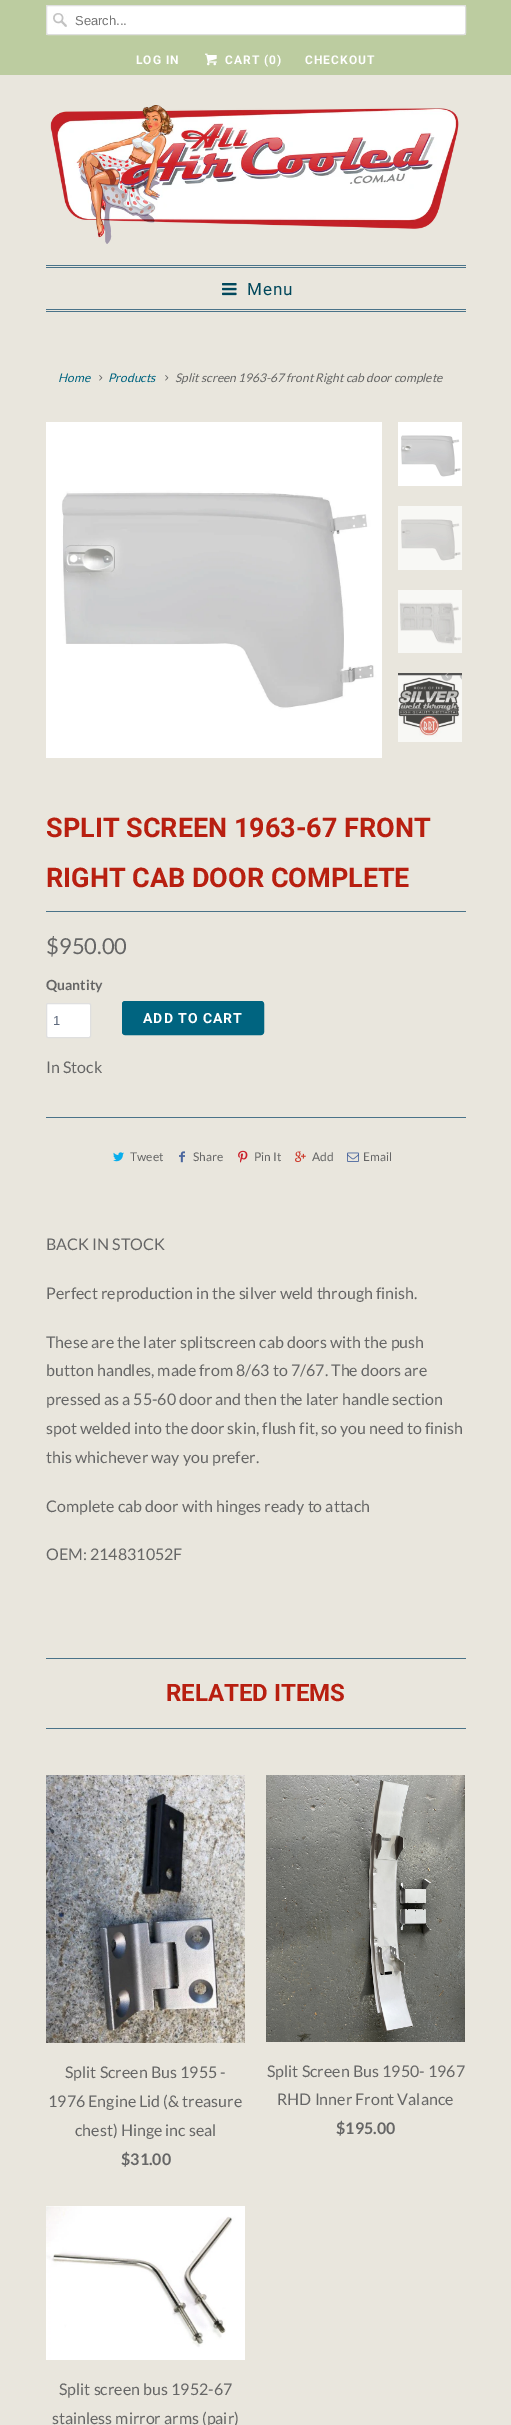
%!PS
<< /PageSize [511 2425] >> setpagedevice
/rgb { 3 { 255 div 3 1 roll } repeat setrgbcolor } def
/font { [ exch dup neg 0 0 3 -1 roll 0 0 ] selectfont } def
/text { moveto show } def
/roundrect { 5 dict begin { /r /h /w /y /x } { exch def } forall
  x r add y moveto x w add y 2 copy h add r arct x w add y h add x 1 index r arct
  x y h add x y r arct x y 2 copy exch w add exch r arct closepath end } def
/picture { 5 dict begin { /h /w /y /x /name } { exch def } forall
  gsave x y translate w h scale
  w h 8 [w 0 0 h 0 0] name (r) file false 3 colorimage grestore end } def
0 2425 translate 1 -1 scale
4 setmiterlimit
233 230 221 rgb
0 0 511 2425 rectfill
188 204 160 rgb
0 0 511 75 rectfill
255 255 255 rgb
46 5 420 30 2 roundrect fill
(img_01.rgb) 53 13 14 14 picture
223 223 223 rgb
46.5 5.5 419 29 1.5 roundrect stroke
(img_02.rgb) 205 53 12 13 picture
(img_03.rgb) 50 105 409 139 picture
74 115 137 rgb
46 265 420 1 rectfill
46 267 420 1 rectfill
46 309 420 1 rectfill
46 311 420 1 rectfill
(img_04.rgb) 222 283 15 13 picture
(img_05.rgb) 99 375 4 6 picture
(img_05.rgb) 165 375 4 6 picture
(img_06.rgb) 46 422 336 336 picture
(img_07.rgb) 398 422 64 64 picture
(img_08.rgb) 398 506 64 64 picture
(img_09.rgb) 398 590 64 63 picture
(img_10.rgb) 398 673 64 69 picture
46 911 420 1 rectfill
255 255 255 rgb
46.5 1003.5 44 34 1.5 roundrect gsave fill grestore
223 223 223 rgb
stroke
0 100 128 rgb
122.5 1001.5 141 33 2.5 roundrect gsave fill grestore
stroke
74 115 137 rgb
46 1117 420 1 rectfill
(img_11.rgb) 113 1152 11 10 picture
(img_12.rgb) 179 1151 6 12 picture
(img_13.rgb) 238 1150 10 13 picture
(img_14.rgb) 295 1151 11 12 picture
(img_15.rgb) 347 1152 12 10 picture
46 1658 420 1 rectfill
46 1728 420 1 rectfill
(img_16.rgb) 46 1775 199 268 picture
(img_17.rgb) 266 1775 199 267 picture
(img_18.rgb) 46 2206 199 154 picture
/LiberationSans-Regular 13 font
117 117 117 rgb
(Search...) 75 25 text
/Roboto-Bold 12 font
255 255 255 rgb
136 64 moveto 1 0 (LOG IN) ashow
225 64 moveto 1 0 (CART \(0\)) ashow
305 64 moveto 1 0 (CHECKOUT) ashow
/Roboto-Regular 17 font
1 72 92 rgb
247 295 moveto 1 0 (Menu) ashow
/Lato-Italic 12 font
0 100 128 rgb
(Home) 58 382 text
(Products) 108 382 text
102 102 102 rgb
(Split screen 1963-67 front Right cab door complete) 175 382 text
/Roboto-Bold 27 font
184 31 16 rgb
(SPLIT SCREEN 1963-67 FRONT) 46 837 text
(RIGHT CAB DOOR COMPLETE) 46 887 text
/Lato-Regular 22 font
102 102 102 rgb
($950.00) 46 954 text
/Lato-Bold 14 font
(Quantity) 46 990 text
/LiberationSans-Regular 13 font
95 106 125 rgb
(1) 53 1025 text
/Roboto-Bold 14 font
255 255 255 rgb
143 1023 moveto 1 0 (ADD TO CART) ashow
/Lato-Regular 16 font
102 102 102 rgb
(In Stock) 46 1073 text
/Lato-Regular 12 font
(Tweet) 130 1161 text
(Share) 193 1161 text
(Pin It) 254 1161 text
(Add) 312 1161 text
(Email) 363 1161 text
/Lato-Regular 16 font
(BACK IN STOCK) 46 1250 text
(Perfect reproduction in the silver weld through finish.) 46 1299 text
(These are the later splitscreen cab doors with the push) 46 1348 text
(button handles, made from 8/63 to 7/67. The doors are) 46 1376 text
(pressed as a 55-60 door and then the later handle section) 46 1405 text
(spot welded into the door skin, flush fit, so you need to finish) 46 1434 text
(this whichever way you prefer.) 46 1463 text
(Complete cab door with hinges ready to attach) 46 1512 text
(OEM: 214831052F) 46 1560 text
/Roboto-Bold 24 font
184 31 16 rgb
(RELATED ITEMS) 166 1701 text
/Lato-Regular 16 font
102 102 102 rgb
(Split Screen Bus 1955 -) 65 2078 text
(1976 Engine Lid \(& treasure) 48 2107 text
(chest\) Hinge inc seal) 75 2136 text
/Lato-Bold 16 font
($31.00) 121 2165 text
/Lato-Regular 16 font
(Split Screen Bus 1950- 1967) 267 2077 text
(RHD Inner Front Valance) 277 2105 text
/Lato-Bold 16 font
($195.00) 336 2134 text
/Lato-Regular 16 font
(Split screen bus 1952-67) 59 2395 text
(stainless mirror arms \(pair\)) 52 2424 text
showpage
